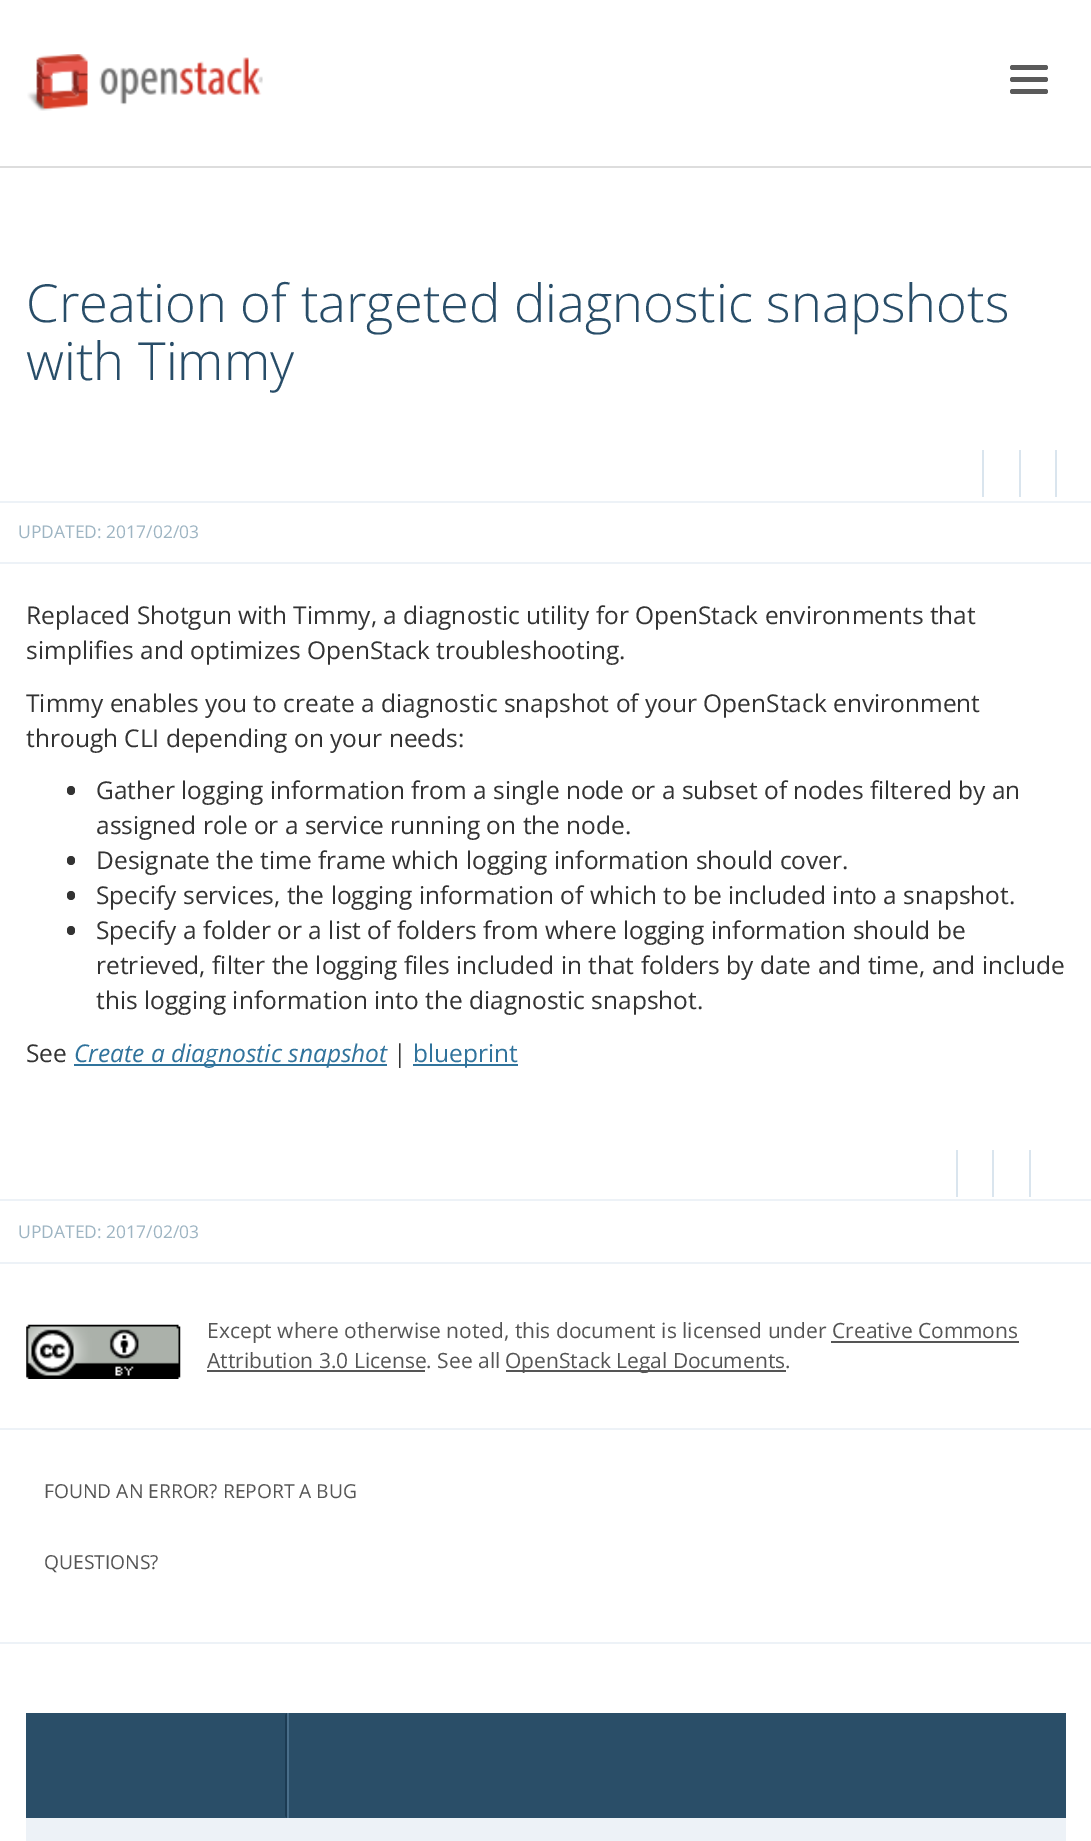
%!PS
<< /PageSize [1091 1841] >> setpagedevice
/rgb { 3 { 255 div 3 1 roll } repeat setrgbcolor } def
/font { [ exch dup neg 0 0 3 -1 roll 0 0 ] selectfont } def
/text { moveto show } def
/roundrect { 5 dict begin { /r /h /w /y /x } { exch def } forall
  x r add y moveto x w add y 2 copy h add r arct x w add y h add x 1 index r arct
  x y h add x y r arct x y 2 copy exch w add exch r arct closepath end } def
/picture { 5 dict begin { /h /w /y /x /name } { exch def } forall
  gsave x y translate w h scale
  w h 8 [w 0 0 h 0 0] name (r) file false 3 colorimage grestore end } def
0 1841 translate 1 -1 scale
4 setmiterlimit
255 255 255 rgb
0 0 1091 1841 rectfill
221 221 221 rgb
0 166 1091 2 rectfill
(img_01.rgb) 27 54 236 57 picture
90 90 90 rgb
1010 65 38 5 2.5 roundrect fill
1010 77 38 5 2.5 roundrect fill
1010 89 38 5 2.5 roundrect fill
218 229 238 rgb
982 450 2 47 rectfill
1019 450 2 47 rectfill
1055 450 2 47 rectfill
237 242 247 rgb
0 501 1091 2 rectfill
0 562 1091 2 rectfill
51 51 51 rgb
67 786 8 9 4 roundrect fill
67 856 8 9 4 roundrect fill
67 891 8 9 4 roundrect fill
67 926 8 9 4 roundrect fill
48 115 156 rgb
74 1064 313 2 rectfill
413 1064 105 2 rectfill
218 229 238 rgb
956 1150 2 47 rectfill
992 1150 2 47 rectfill
1029 1150 2 47 rectfill
237 242 247 rgb
0 1199 1091 2 rectfill
0 1262 1091 2 rectfill
0 1428 1091 2 rectfill
(img_02.rgb) 26 1324 155 55 picture
85 85 85 rgb
831 1341 188 2 rectfill
207 1370 218 2 rectfill
506 1370 280 2 rectfill
237 242 247 rgb
0 1642 1091 2 rectfill
42 78 104 rgb
26 1713 261 105 rectfill
28 59 83 rgb
287 1713 moveto 0 105 rlineto -2 -2 rlineto 0 -101 rlineto closepath fill
42 78 104 rgb
289 1713 777 105 rectfill
73 110 138 rgb
287 1713 2 105 rectfill
237 242 247 rgb
26 1818 1040 23 rectfill
/OpenSans-Light 52.5 font
40 77 104 rgb
(Creation of targeted diagnostic snapshots) 26 322 text
(with Timmy) 26 380 text
/OpenSans-Regular 17.5 font
158 181 195 rgb
(UPDATED: 2017/02/03) 18 538 text
/OpenSans-Regular 24.5 font
51 51 51 rgb
(Replaced Shotgun with Timmy, a diagnostic utility for OpenStack environments that) 26 624 text
(simplifies and optimizes OpenStack troubleshooting.) 26 659 text
(Timmy enables you to create a diagnostic snapshot of your OpenStack environment) 26 712 text
(through CLI depending on your needs:) 26 747 text
(Gather logging information from a single node or a subset of nodes filtered by an) 96 799 text
(assigned role or a service running on the node.) 96 834 text
(Designate the time frame which logging information should cover.) 96 869 text
(Specify services, the logging information of which to be included into a snapshot.) 96 904 text
(Specify a folder or a list of folders from where logging information should be) 96 939 text
(retrieved, filter the logging files included in that folders by date and time, and include) 96 974 text
(this logging information into the diagnostic snapshot.) 96 1009 text
(See) 26 1062 text
/OpenSans-Italic 24.5 font
48 115 156 rgb
(Create a diagnostic snapshot) 74 1062 text
/OpenSans-Regular 24.5 font
51 51 51 rgb
(|) 393 1062 text
48 115 156 rgb
(blueprint) 413 1062 text
/OpenSans-Regular 17.5 font
158 181 195 rgb
(UPDATED: 2017/02/03) 18 1238 text
/OpenSans-Regular 21 font
85 85 85 rgb
(Except where otherwise noted, this document is licensed under Creative Commons) 207 1338 text
(Attribution 3.0 License. See all) 207 1368 text
(OpenStack Legal Documents.) 505 1368 text
/OpenSans-Regular 19.25 font
(FOUND AN ERROR? REPORT A BUG) 44 1498 text
(QUESTIONS?) 44 1569 text
showpage
